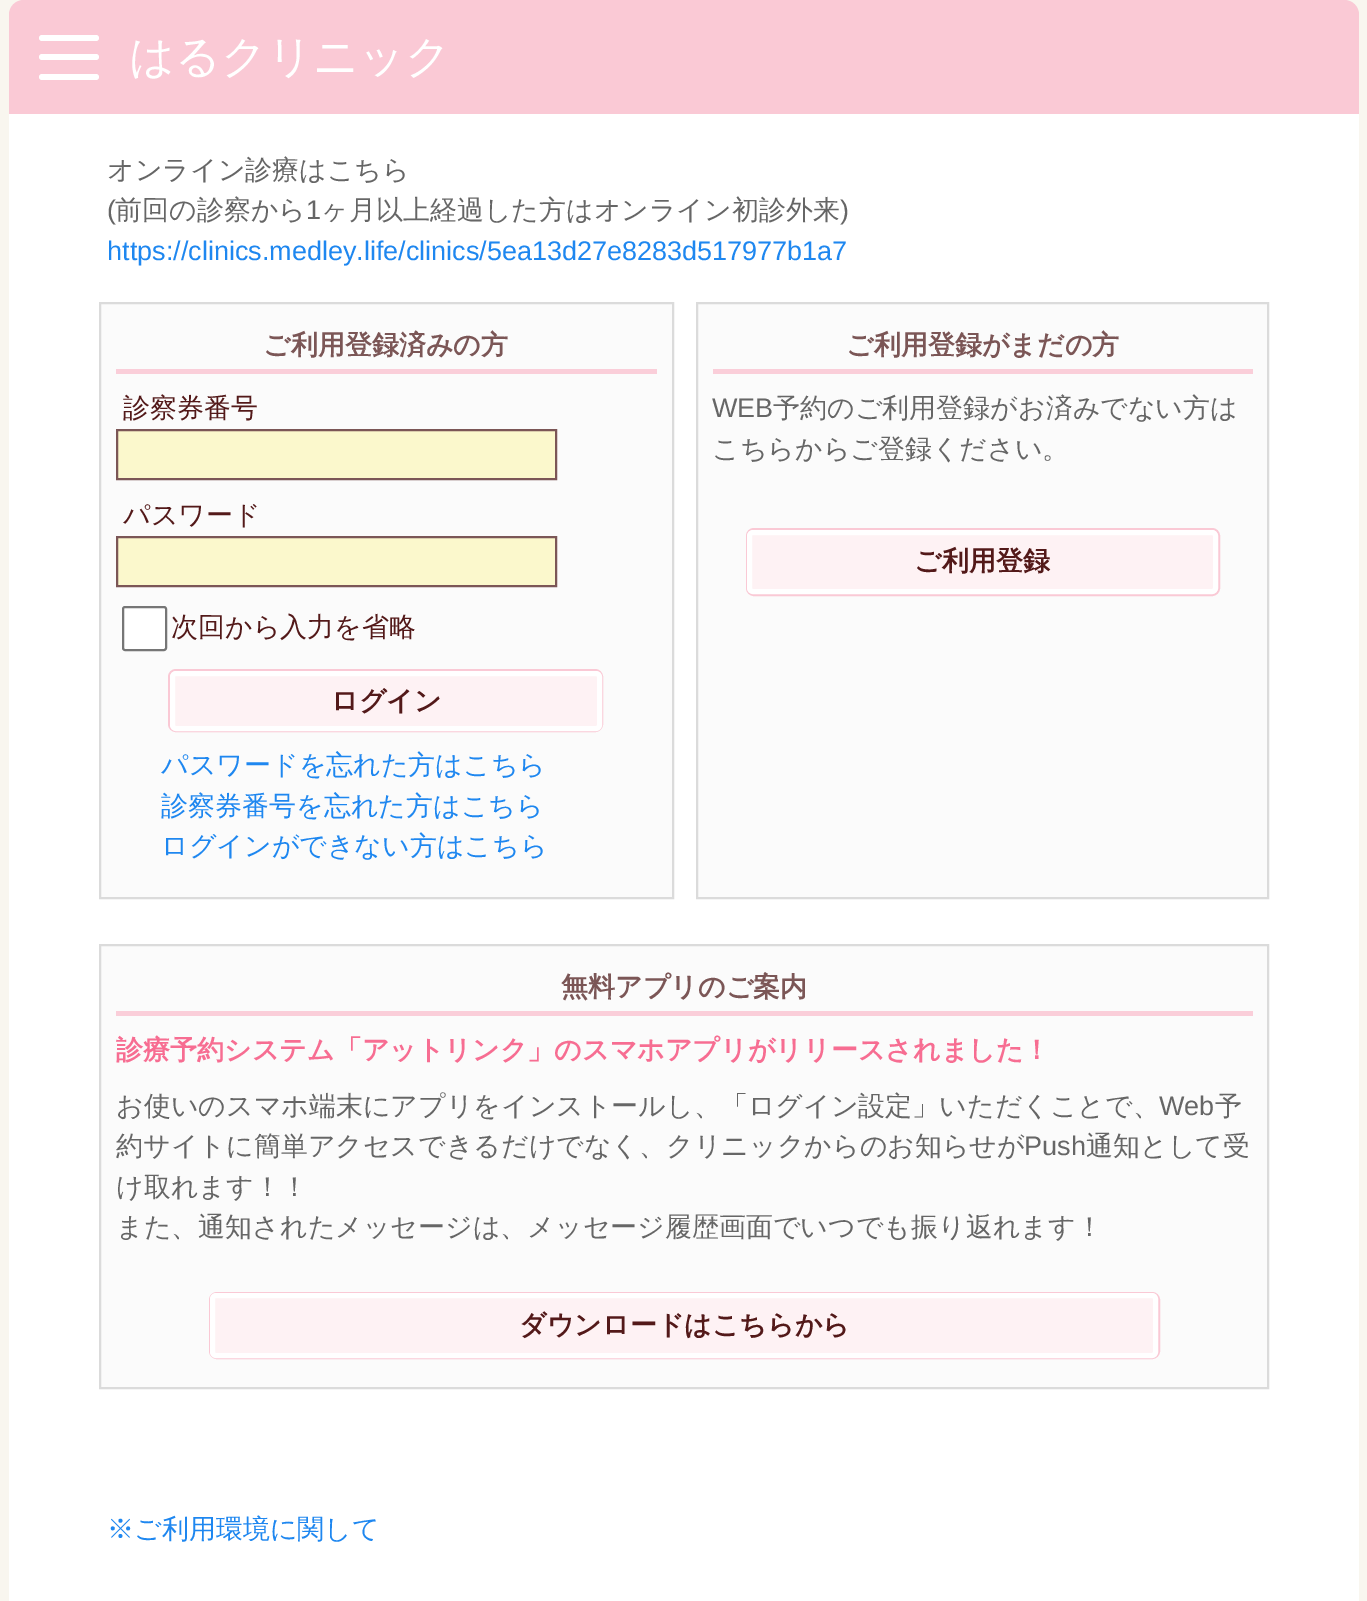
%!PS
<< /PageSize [1367 1601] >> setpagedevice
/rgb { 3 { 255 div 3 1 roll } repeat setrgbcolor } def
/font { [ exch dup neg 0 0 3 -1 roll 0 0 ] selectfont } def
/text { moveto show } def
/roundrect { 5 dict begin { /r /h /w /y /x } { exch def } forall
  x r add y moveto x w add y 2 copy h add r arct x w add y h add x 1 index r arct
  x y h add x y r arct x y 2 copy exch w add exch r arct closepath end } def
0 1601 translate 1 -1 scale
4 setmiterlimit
249 246 239 rgb
0 0 1367 1601 rectfill
250 201 213 rgb
24 0 moveto 1320 0 rlineto 8.5 0 15 6.5 15 15 rcurveto 0 99 rlineto -1350 0 rlineto 0 -99 rlineto 0 -8.5 6.5 -15 15 -15 rcurveto closepath fill
255 255 255 rgb
39 35 60 6 3 roundrect fill
39 54 60 6 3 roundrect fill
39 74 60 6 3 roundrect fill
9 114 1350 1487 rectfill
251 251 251 rgb
100 303 moveto 573 0 rlineto 0 595 rlineto -573 0 rlineto closepath gsave fill grestore
219 219 219 rgb
2 setlinewidth
stroke
250 206 217 rgb
116 369 541 5 rectfill
251 248 204 rgb
117 430 moveto 439 0 rlineto 0 49 rlineto -439 0 rlineto closepath gsave fill grestore
123 86 86 rgb
stroke
251 248 204 rgb
117 537 moveto 439 0 rlineto 0 49 rlineto -439 0 rlineto closepath gsave fill grestore
123 86 86 rgb
stroke
255 255 255 rgb
123 607 43 43 2 roundrect gsave fill grestore
118 118 118 rgb
stroke
250 201 213 rgb
169 670 433 61 7 roundrect stroke
254 242 244 rgb
172.5 673.5 427 55 3.5 roundrect gsave fill grestore
255 255 255 rgb
5 setlinewidth
stroke
251 251 251 rgb
697 303 moveto 571 0 rlineto 0 595 rlineto -571 0 rlineto closepath gsave fill grestore
219 219 219 rgb
2 setlinewidth
stroke
250 206 217 rgb
713 369 540 5 rectfill
250 201 213 rgb
747 529 472 66 7 roundrect stroke
254 242 244 rgb
749.5 532.5 466 59 3.5 roundrect gsave fill grestore
255 255 255 rgb
5 setlinewidth
stroke
251 251 251 rgb
100 945 moveto 1168 0 rlineto 0 443 rlineto -1168 0 rlineto closepath gsave fill grestore
219 219 219 rgb
2 setlinewidth
stroke
250 206 217 rgb
116 1011 1137 5 rectfill
250 201 213 rgb
210 1293 949 65 7 roundrect stroke
254 242 244 rgb
212.5 1295.5 943 60 3.5 roundrect gsave fill grestore
255 255 255 rgb
5 setlinewidth
stroke
/WenQuanYiZenHei-Medium 45 font
(はるクリニック) 129 72 text
/WenQuanYiZenHei-Medium 27 font
102 102 102 rgb
(オンライン診療はこちら) 107 179 text
/LiberationSans-Regular 27 font
(\() 107 219 text
/WenQuanYiZenHei-Medium 27 font
(前回の診察から) 115 219 text
/LiberationSans-Regular 27 font
(1) 306 219 text
/WenQuanYiZenHei-Medium 27 font
(ヶ月以上経過した方はオンライン初診外来) 321 219 text
/LiberationSans-Regular 27 font
(\)) 840 219 text
30 135 240 rgb
(https://clinics.medley.life/clinics/5ea13d27e8283d517977b1a7) 107 260 text
/WenQuanYiZenHei-Bold 27 font
123 86 86 rgb
(ご利用登録済みの方) 263 354 text
/WenQuanYiZenHei-Medium 27 font
83 25 25 rgb
(診察券番号) 123 417 text
(パスワード) 123 524 text
(次回から入力を省略) 171 636 text
/WenQuanYiZenHei-Bold 27 font
(ログイン) 331 710 text
/WenQuanYiZenHei-Medium 27 font
30 135 240 rgb
(パスワードを忘れた方はこちら) 161 774 text
(診察券番号を忘れた方はこちら) 161 815 text
(ログインができない方はこちら) 161 855 text
/WenQuanYiZenHei-Bold 27 font
123 86 86 rgb
(ご利用登録がまだの方) 846 354 text
/LiberationSans-Regular 27 font
102 102 102 rgb
(WEB) 712 417 text
/WenQuanYiZenHei-Medium 27 font
(予約のご利用登録がお済みでない方は) 773 417 text
(こちらからご登録ください。) 712 458 text
/WenQuanYiZenHei-Bold 27 font
83 25 25 rgb
(ご利用登録) 914 570 text
123 86 86 rgb
(無料アプリのご案内) 561 996 text
247 109 146 rgb
(診療予約システム「アットリンク」のスマホアプリがリリースされました！) 116 1059 text
/WenQuanYiZenHei-Medium 27 font
102 102 102 rgb
(お使いのスマホ端末にアプリをインストールし、「ログイン設定」いただくことで、) 116 1115 text
/LiberationSans-Regular 27 font
(Web) 1159 1115 text
/WenQuanYiZenHei-Medium 27 font
(予) 1215 1115 text
(約サイトに簡単アクセスできるだけでなく、クリニックからのお知らせが) 116 1155 text
/LiberationSans-Regular 27 font
(Push) 1024 1155 text
/WenQuanYiZenHei-Medium 27 font
(通知として受) 1086 1155 text
(け取れます！！) 116 1196 text
(また、通知されたメッセージは、メッセージ履歴画面でいつでも振り返れます！) 116 1236 text
/WenQuanYiZenHei-Bold 27 font
83 25 25 rgb
(ダウンロードはこちらから) 519 1334 text
/WenQuanYiZenHei-Medium 27 font
30 135 240 rgb
(※ご利用環境に関して) 107 1538 text
showpage
